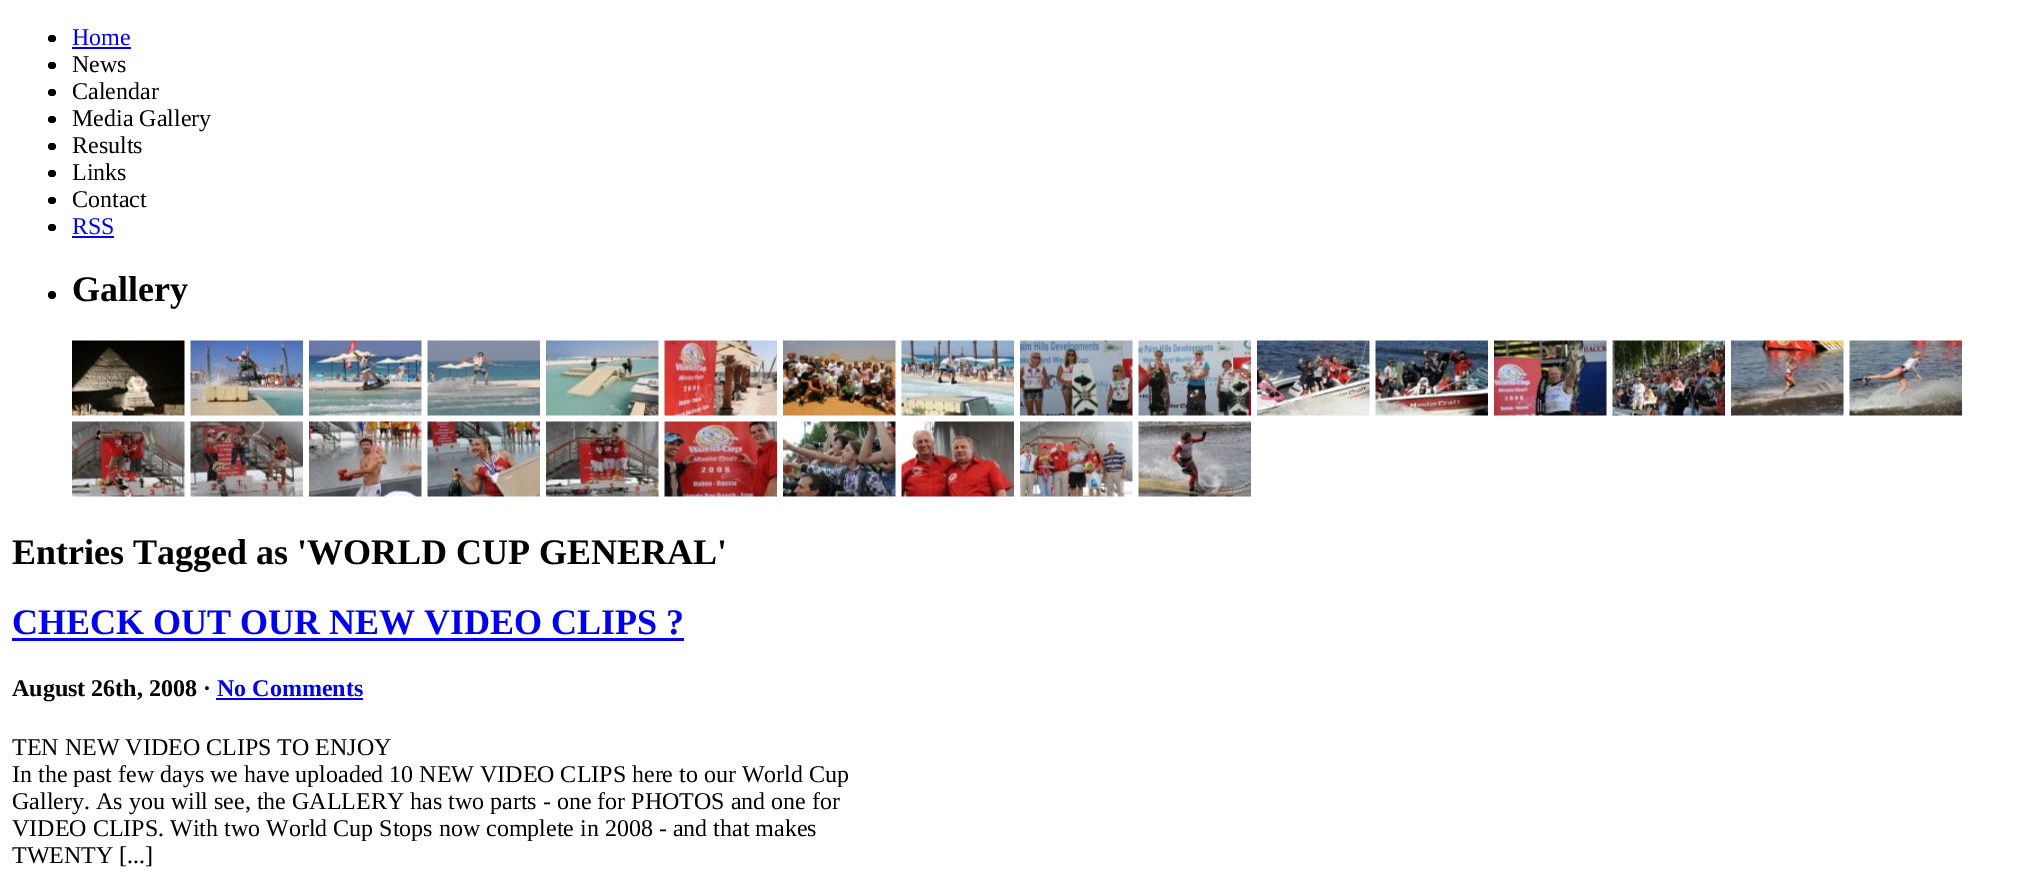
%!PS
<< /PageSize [2032 873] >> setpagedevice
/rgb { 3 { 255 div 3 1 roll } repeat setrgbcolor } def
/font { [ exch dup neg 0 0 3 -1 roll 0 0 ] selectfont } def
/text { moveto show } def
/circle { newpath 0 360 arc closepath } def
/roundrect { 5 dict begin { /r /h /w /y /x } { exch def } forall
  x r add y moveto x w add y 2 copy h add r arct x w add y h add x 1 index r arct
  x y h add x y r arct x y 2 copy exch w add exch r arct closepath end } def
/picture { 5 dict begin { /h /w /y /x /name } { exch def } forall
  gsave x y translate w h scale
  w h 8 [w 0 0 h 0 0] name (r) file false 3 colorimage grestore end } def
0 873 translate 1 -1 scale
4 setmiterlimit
255 255 255 rgb
0 0 2032 873 rectfill
0 0 0 rgb
48 35 8 7 3.5 roundrect fill
0 0 238 rgb
72 47 59 2 rectfill
0 0 0 rgb
48 62 8 7 3.5 roundrect fill
48 89 8 7 3.5 roundrect fill
48 116 8 7 3.5 roundrect fill
48 143 8 7 3.5 roundrect fill
48 170 8 7 3.5 roundrect fill
48 197 8 7 3.5 roundrect fill
48 224 8 7 3.5 roundrect fill
0 0 238 rgb
72 236 42 2 rectfill
0 0 0 rgb
52 295 4 circle fill
(img_01.rgb) 72 340 113 76 picture
(img_02.rgb) 190 340 113 76 picture
(img_03.rgb) 309 340 113 76 picture
(img_04.rgb) 427 340 113 76 picture
(img_05.rgb) 546 340 113 76 picture
(img_06.rgb) 664 340 113 76 picture
(img_07.rgb) 783 340 113 76 picture
(img_08.rgb) 901 340 113 76 picture
(img_09.rgb) 1020 340 113 76 picture
(img_10.rgb) 1138 340 113 76 picture
(img_11.rgb) 1257 340 113 76 picture
(img_12.rgb) 1375 340 113 76 picture
(img_13.rgb) 1494 340 113 76 picture
(img_14.rgb) 1612 340 113 76 picture
(img_15.rgb) 1731 340 113 76 picture
(img_16.rgb) 1849 340 113 76 picture
(img_17.rgb) 72 421 113 76 picture
(img_18.rgb) 190 421 113 76 picture
(img_19.rgb) 309 421 113 76 picture
(img_20.rgb) 427 421 113 76 picture
(img_21.rgb) 546 421 113 76 picture
(img_22.rgb) 664 421 113 76 picture
(img_23.rgb) 783 421 113 76 picture
(img_24.rgb) 901 421 113 76 picture
(img_25.rgb) 1020 421 113 76 picture
(img_26.rgb) 1138 421 113 76 picture
0 0 238 rgb
12 638 672 3 rectfill
216 698 147 2 rectfill
/LiberationSerif-Regular 24 font
(Home) 72 45 text
0 0 0 rgb
(News) 72 72 text
(Calendar) 72 99 text
(Media Gallery) 72 126 text
(Results) 72 153 text
(Links) 72 180 text
(Contact) 72 207 text
0 0 238 rgb
(RSS) 72 234 text
/LiberationSerif-Bold 36 font
0 0 0 rgb
(Gallery) 72 301 text
(Entries Tagged as 'WORLD CUP GENERAL') 12 564 text
0 0 238 rgb
(CHECK OUT OUR NEW VIDEO CLIPS ?) 12 634 text
/LiberationSerif-Bold 24 font
0 0 0 rgb
(August 26th, 2008 ·) 12 696 text
0 0 238 rgb
(No Comments) 217 696 text
/LiberationSerif-Regular 24 font
0 0 0 rgb
(TEN NEW VIDEO CLIPS TO ENJOY) 12 755 text
(In the past few days we have uploaded 10 NEW VIDEO CLIPS here to our World Cup) 12 782 text
(Gallery. As you will see, the GALLERY has two parts - one for PHOTOS and one for) 12 809 text
(VIDEO CLIPS. With two World Cup Stops now complete in 2008 - and that makes) 12 836 text
(TWENTY [...]) 12 863 text
showpage
